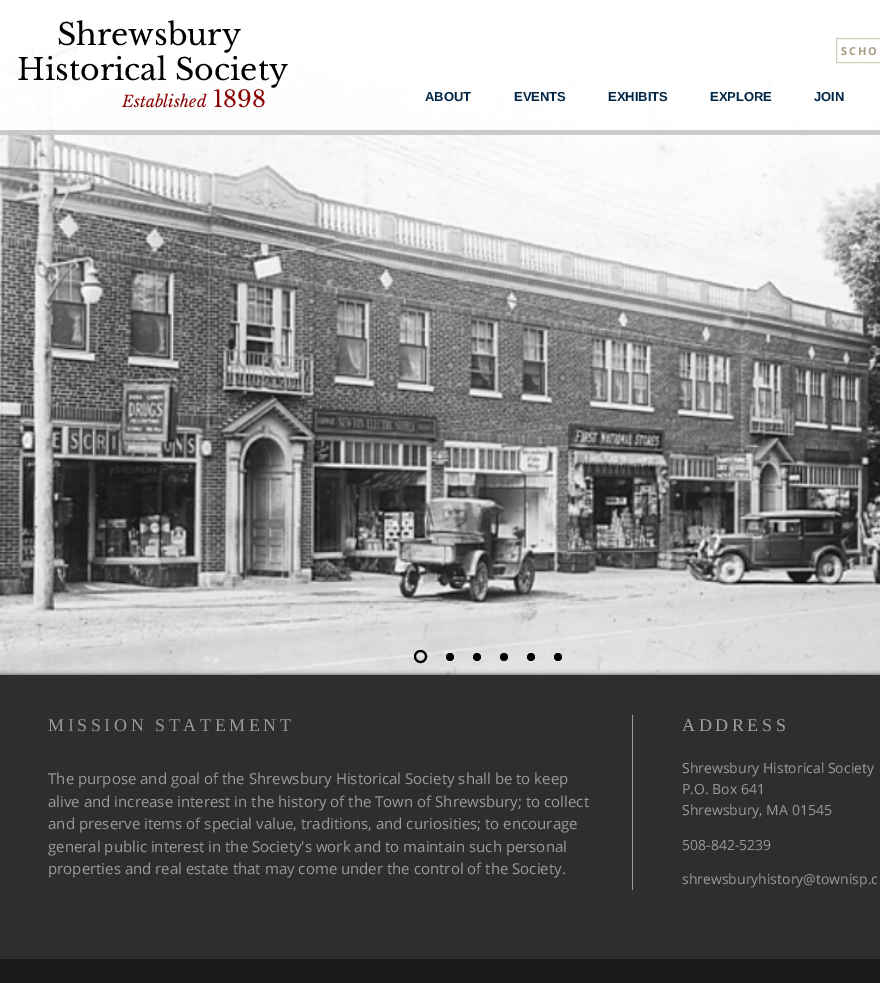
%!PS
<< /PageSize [880 983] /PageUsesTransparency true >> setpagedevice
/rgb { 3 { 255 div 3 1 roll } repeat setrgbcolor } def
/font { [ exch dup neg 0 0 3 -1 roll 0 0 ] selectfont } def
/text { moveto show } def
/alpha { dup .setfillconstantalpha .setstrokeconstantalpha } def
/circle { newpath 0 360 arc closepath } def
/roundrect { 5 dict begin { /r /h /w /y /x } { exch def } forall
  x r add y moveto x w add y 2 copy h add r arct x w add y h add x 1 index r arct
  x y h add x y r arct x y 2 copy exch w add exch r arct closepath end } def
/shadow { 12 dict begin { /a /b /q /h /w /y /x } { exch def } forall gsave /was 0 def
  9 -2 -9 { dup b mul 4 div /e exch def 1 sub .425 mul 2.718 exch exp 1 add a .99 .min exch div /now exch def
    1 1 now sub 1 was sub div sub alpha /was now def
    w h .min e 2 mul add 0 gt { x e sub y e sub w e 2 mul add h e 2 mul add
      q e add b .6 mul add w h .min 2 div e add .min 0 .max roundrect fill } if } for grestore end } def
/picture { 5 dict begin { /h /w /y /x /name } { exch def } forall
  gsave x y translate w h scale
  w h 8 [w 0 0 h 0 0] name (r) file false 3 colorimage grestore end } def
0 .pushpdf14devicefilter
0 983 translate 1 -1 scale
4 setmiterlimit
255 255 255 rgb
0 0 880 983 rectfill
(img_01.rgb) 0 47 880 628 picture
0.83 alpha
0 47 875 88 rectfill
1 alpha
211 204 186 rgb
836.5 38.5 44 24 rectstroke
0.39 alpha
255 255 255 rgb
0 47 771 83 rectfill
0.54 alpha
160 160 159 rgb
0 130 880 5 rectfill
1 alpha
0 0 0 rgb
2 setlinewidth
420.5 656.5 5.5 circle stroke
450 657 4 circle fill
477 657 4 circle fill
504 657 4 circle fill
531 657 4 circle fill
558 657 4 circle fill
0 675 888 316 0 2.5 0.7 shadow
47 46 46 rgb
0 675 880 284 rectfill
153 153 153 rgb
632 715 1 175 rectfill
27 26 26 rgb
0 959 880 24 rectfill
/LibreBaskerville-Regular 30 font
0 0 0 rgb
(Shrewsbury) 57 45 text
(Historical Society) 17 80 text
/OpenSans-Bold 11 font
166 156 128 rgb
841 55 moveto 2 0 (SCHO) ashow
/LibreBaskerville-Italic 16 font
139 0 0 rgb
(Established) 122 107 text
/LibreBaskerville-Regular 23 font
(1898) 213 107 text
/LiberationSans-Bold 13 font
1 38 70 rgb
(ABOUT) 425 101 text
(EVENTS) 514 101 text
(EXHIBITS) 608 101 text
(EXPLORE) 710 101 text
(JOIN) 814 101 text
/LiberationSerif-Regular 18 font
153 153 153 rgb
48 731 moveto 3.6 0 (MISSION STATEMENT) ashow
160 160 159 rgb
682 731 moveto 3.6 0 (ADDRESS) ashow
/OpenSans-Regular 15 font
153 153 153 rgb
(The purpose and goal of the Shrewsbury Historical Society shall be to keep) 48 784 text
(alive and increase interest in the history of the Town of Shrewsbury; to collect) 48 807 text
(and preserve items of special value, traditions, and curiosities; to encourage) 48 829 text
(general public interest in the Society's work and to maintain such personal) 48 852 text
(properties and real estate that may come under the control of the Society.) 48 874 text
/OpenSans-Regular 14 font
(Shrewsbury Historical Society) 682 773 text
(P.O. Box 641) 682 794 text
(Shrewsbury, MA 01545) 682 815 text
(508-842-5239) 682 850 text
(shrewsburyhistory@townisp.c) 682 884 text
.poppdf14devicefilter showpage
